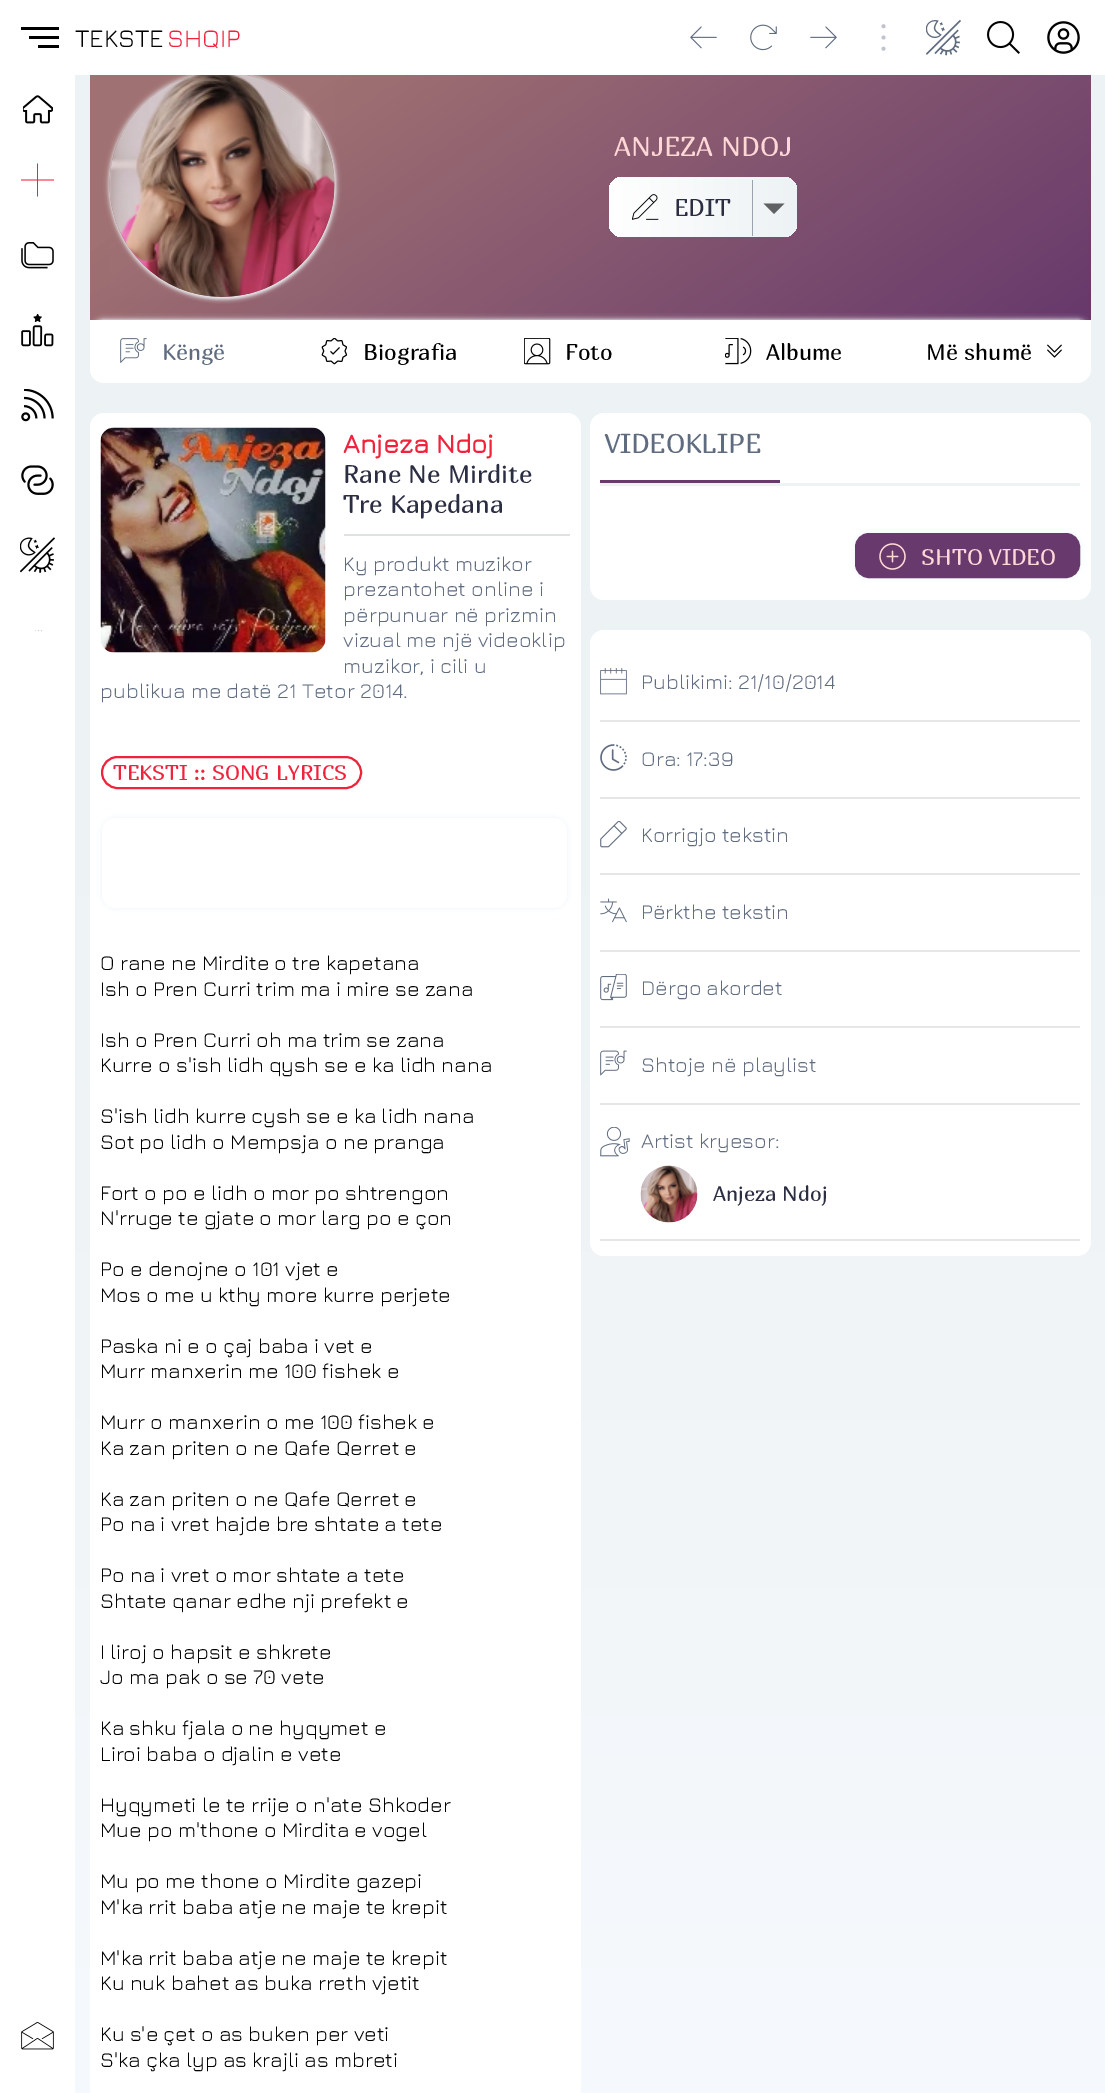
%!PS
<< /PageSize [1105 2093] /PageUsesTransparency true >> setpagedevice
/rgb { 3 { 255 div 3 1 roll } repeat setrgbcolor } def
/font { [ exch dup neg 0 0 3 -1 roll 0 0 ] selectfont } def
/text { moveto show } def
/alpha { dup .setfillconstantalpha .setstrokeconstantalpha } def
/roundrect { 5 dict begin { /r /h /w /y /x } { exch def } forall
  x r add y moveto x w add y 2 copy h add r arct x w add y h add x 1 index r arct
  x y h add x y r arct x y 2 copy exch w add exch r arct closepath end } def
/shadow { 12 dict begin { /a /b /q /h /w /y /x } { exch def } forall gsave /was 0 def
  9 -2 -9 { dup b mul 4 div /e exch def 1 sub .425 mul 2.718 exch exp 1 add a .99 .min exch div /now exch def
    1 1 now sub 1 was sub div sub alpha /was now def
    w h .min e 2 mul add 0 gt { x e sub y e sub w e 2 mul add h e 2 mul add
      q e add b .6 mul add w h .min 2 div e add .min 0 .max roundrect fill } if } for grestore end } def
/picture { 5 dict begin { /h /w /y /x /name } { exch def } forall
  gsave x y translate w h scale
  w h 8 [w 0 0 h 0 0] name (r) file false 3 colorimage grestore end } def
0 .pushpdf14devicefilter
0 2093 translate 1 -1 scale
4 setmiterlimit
255 255 255 rgb
0 0 1105 2093 rectfill
gsave 75 75 moveto 1030 0 rlineto 0 2018 rlineto -1030 0 rlineto closepath clip newpath
<< /ShadingType 2 /ColorSpace /DeviceRGB /Coords [590 27 590 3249] /Extend [true true] /Function << /FunctionType 3 /Domain [0 1] /Functions [<< /FunctionType 2 /Domain [0 1] /C0 [0.929 0.949 0.957] /C1 [0.929 0.949 0.957] /N 1 >> << /FunctionType 2 /Domain [0 1] /C0 [0.929 0.949 0.957] /C1 [0.973 0.984 1] /N 1 >> << /FunctionType 2 /Domain [0 1] /C0 [0.973 0.984 1] /C1 [0.973 0.984 1] /N 1 >>] /Bounds [0.25 0.75] /Encode [0 1 0 1 0 1] >> >> shfill grestore
gsave 90 75 moveto 1001 0 rlineto 0 245 rlineto -1001 0 rlineto closepath clip newpath
<< /ShadingType 2 /ColorSpace /DeviceRGB /Coords [362 -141 818 510] /Extend [true true] /Function << /FunctionType 3 /Domain [0 1] /Functions [<< /FunctionType 2 /Domain [0 1] /C0 [0.627 0.443 0.447] /C1 [0.627 0.443 0.447] /N 1 >> << /FunctionType 2 /Domain [0 1] /C0 [0.627 0.443 0.447] /C1 [0.404 0.224 0.424] /N 1 >>] /Bounds [0.2] /Encode [0 1 0 1] >> >> shfill grestore
237 242 244 rgb
110 72 225 225 112.5 3 1 shadow
110 74 225 225 112.5 2 1 shadow
255 255 255 rgb
187 69 71 6 rectfill
0 0 0 rgb
21 27 38 3 rectfill
29 36 30 3 rectfill
38 45 21 3 rectfill
(img_01.rgb) 690 26 27 23 picture
(img_02.rgb) 750 24 27 27 picture
(img_03.rgb) 810 26 27 23 picture
(img_04.rgb) 881 24 5 27 picture
(img_05.rgb) 926 20 35 36 picture
(img_06.rgb) 987 21 33 33 picture
(img_07.rgb) 1047 21 33 33 picture
(img_08.rgb) 23 95 30 29 picture
239 35 60 rgb
37 163.5 moveto 0 16 rlineto -16 0 rlineto 0 1 rlineto 16 0 rlineto 0 16 rlineto 1 0 rlineto 0 -16 rlineto 16 0 rlineto 0 -1 rlineto -16 0 rlineto 0 -16 rlineto closepath fill
(img_09.rgb) 21 242 33 27 picture
(img_10.rgb) 21 314 33 33 picture
(img_11.rgb) 21 389 33 33 picture
(img_12.rgb) 21 465 33 30 picture
(img_13.rgb) 20 537 35 36 picture
(img_14.rgb) 35 630 7 2 picture
(img_15.rgb) 21 2022 33 28 picture
(img_16.rgb) 109 75 226 222 picture
gsave 609 177 188 60 14 roundrect clip newpath
<< /ShadingType 2 /ColorSpace /DeviceRGB /Coords [609 207 797 207] /Extend [true true] /Function << /FunctionType 2 /Domain [0 1] /C0 [1 1 1] /C1 [0.929 0.949 0.957] /N 1 >> >> shfill grestore
(img_17.rgb) 632 194 27 26 picture
153 162 175 rgb
752 180 moveto 0 56 rlineto 31 0 rlineto -30 0 rlineto 0 -56 rlineto closepath fill
96 97 98 rgb
763.5 203.5 moveto 10.5 10.5 rlineto 10.5 -10.5 rlineto closepath fill
237 242 244 rgb
90 320 1001 63 14 3 1 shadow
90 321 1001 63 14 2 1 shadow
255 255 255 rgb
90 320 moveto 1001 0 rlineto 0 49 rlineto 0 7.5 -6.5 14 -14 14 rcurveto -973 0 rlineto -7.5 0 -14 -6.5 -14 -14 rcurveto closepath fill
(img_18.rgb) 120 338 27 25 picture
(img_19.rgb) 321 338 27 27 picture
(img_20.rgb) 524 338 27 27 picture
(img_21.rgb) 725 338 27 27 picture
(img_22.rgb) 1047 344 15 14 picture
90 413 491 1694 14 roundrect fill
(img_23.rgb) 100 427 226 226 picture
223 225 229 rgb
344 534 226 2 rectfill
239 35 60 rgb
2 setlinewidth
102 757 259 31 15.5 roundrect stroke
237 242 244 rgb
102 818 465 90 14 3 1 shadow
255 255 255 rgb
102 818 465 90 14 roundrect fill
590 413 501 187 14 roundrect fill
237 242 244 rgb
600 483 480 3 rectfill
103 57 108 rgb
600 480 180 3 rectfill
237 242 244 rgb
855 533 225 45 14 3 1 shadow
103 57 108 rgb
856 534 223 43 13 roundrect gsave fill grestore
stroke
(img_24.rgb) 879 543 27 27 picture
255 255 255 rgb
590 630 501 626 14 roundrect fill
230 230 230 rgb
600 720 480 2 rectfill
(img_25.rgb) 600 668 27 27 picture
600 797 480 2 rectfill
(img_26.rgb) 600 744 27 27 picture
600 873 480 2 rectfill
(img_27.rgb) 600 821 27 27 picture
600 950 480 2 rectfill
(img_28.rgb) 600 898 27 25 picture
600 1026 480 2 rectfill
(img_29.rgb) 600 974 27 27 picture
600 1103 480 2 rectfill
(img_30.rgb) 600 1050 27 26 picture
600 1239 480 2 rectfill
(img_31.rgb) 600 1127 30 30 picture
(img_32.rgb) 640 1165 58 58 picture
/Jura-Light 25.5 font
0 0 0 rgb
(TEKSTE) 75 47 text
239 35 60 rgb
(SHQIP) 167 47 text
/Marmelad-Regular 27 font
255 215 215 rgb
(ANJEZA NDOJ) 614 156 text
/Marmelad-Regular 24 font
43 45 66 rgb
(EDIT) 674 216 text
/Marmelad-Regular 22.5 font
95 107 127 rgb
(Këngë) 162 360 text
0 0 0 rgb
(Biografia) 363 360 text
(Foto) 565 360 text
(Albume) 766 360 text
(Më shumë) 926 360 text
/Jura-Bold 27 font
239 35 60 rgb
(Anjeza Ndoj) 343 453 text
/Marmelad-Regular 25.25 font
43 45 66 rgb
(Rane Ne Mirdite) 343 483 text
(Tre Kapedana) 343 513 text
/Jura-Light 21 font
95 107 127 rgb
(Ky produkt muzikor) 343 571 text
(prezantohet online i) 343 596 text
(përpunuar në prizmin) 343 622 text
(vizual me një videoklip) 343 647 text
(muzikor, i cili u) 343 673 text
(publikua me datë 21 Tetor 2014.) 100 698 text
/Marmelad-Regular 21 font
239 35 60 rgb
(TEKSTI :: SONG LYRICS) 113 780 text
/Jura-Light 21 font
0 0 0 rgb
(O rane ne Mirdite o tre kapetana) 100 970 text
(Ish o Pren Curri trim ma i mire se zana) 100 996 text
(Ish o Pren Curri oh ma trim se zana) 100 1047 text
(Kurre o s'ish lidh qysh se e ka lidh nana) 100 1072 text
(S'ish lidh kurre cysh se e ka lidh nana) 100 1123 text
(Sot po lidh o Mempsja o ne pranga) 100 1149 text
(Fort o po e lidh o mor po shtrengon) 100 1200 text
(N'rruge te gjate o mor larg po e çon) 100 1225 text
(Po e denojne o 101 vjet e) 100 1276 text
(Mos o me u kthy more kurre perjete) 100 1302 text
(Paska ni e o çaj baba i vet e) 100 1353 text
(Murr manxerin me 100 fishek e) 100 1378 text
(Murr o manxerin o me 100 fishek e) 100 1429 text
(Ka zan priten o ne Qafe Qerret e) 100 1455 text
(Ka zan priten o ne Qafe Qerret e) 100 1506 text
(Po na i vret hajde bre shtate a tete) 100 1531 text
(Po na i vret o mor shtate a tete) 100 1582 text
(Shtate qanar edhe nji prefekt e) 100 1608 text
(I liroj o hapsit e shkrete) 100 1659 text
(Jo ma pak o se 70 vete) 100 1684 text
(Ka shku fjala o ne hyqymet e) 100 1735 text
(Liroi baba o djalin e vete) 100 1761 text
(Hyqymeti le te rrije o n'ate Shkoder) 100 1812 text
(Mue po m'thone o Mirdita e vogel) 100 1837 text
(Mu po me thone o Mirdite gazepi) 100 1888 text
(M'ka rrit baba atje ne maje te krepit) 100 1914 text
(M'ka rrit baba atje ne maje te krepit) 100 1965 text
(Ku nuk bahet as buka rreth vjetit) 100 1990 text
(Ku s'e çet o as buken per veti) 100 2041 text
(S'ka çka lyp as krajli as mbreti) 100 2067 text
/Marmelad-Regular 27 font
95 107 127 rgb
(VIDEOKLIPE) 605 453 text
/Marmelad-Regular 22.5 font
255 215 215 rgb
(SHTO VIDEO) 921 565 text
/Jura-Light 21 font
95 107 127 rgb
(Publikimi: 21/10/2014) 641 689 text
(Ora: 17:39) 641 766 text
(Korrigjo tekstin) 641 842 text
(Përkthe tekstin) 641 919 text
(Dërgo akordet) 641 995 text
(Shtoje në playlist) 641 1072 text
(Artist kryesor:) 641 1148 text
/Marmelad-Regular 21 font
43 45 66 rgb
(Anjeza Ndoj) 713 1201 text
.poppdf14devicefilter showpage
